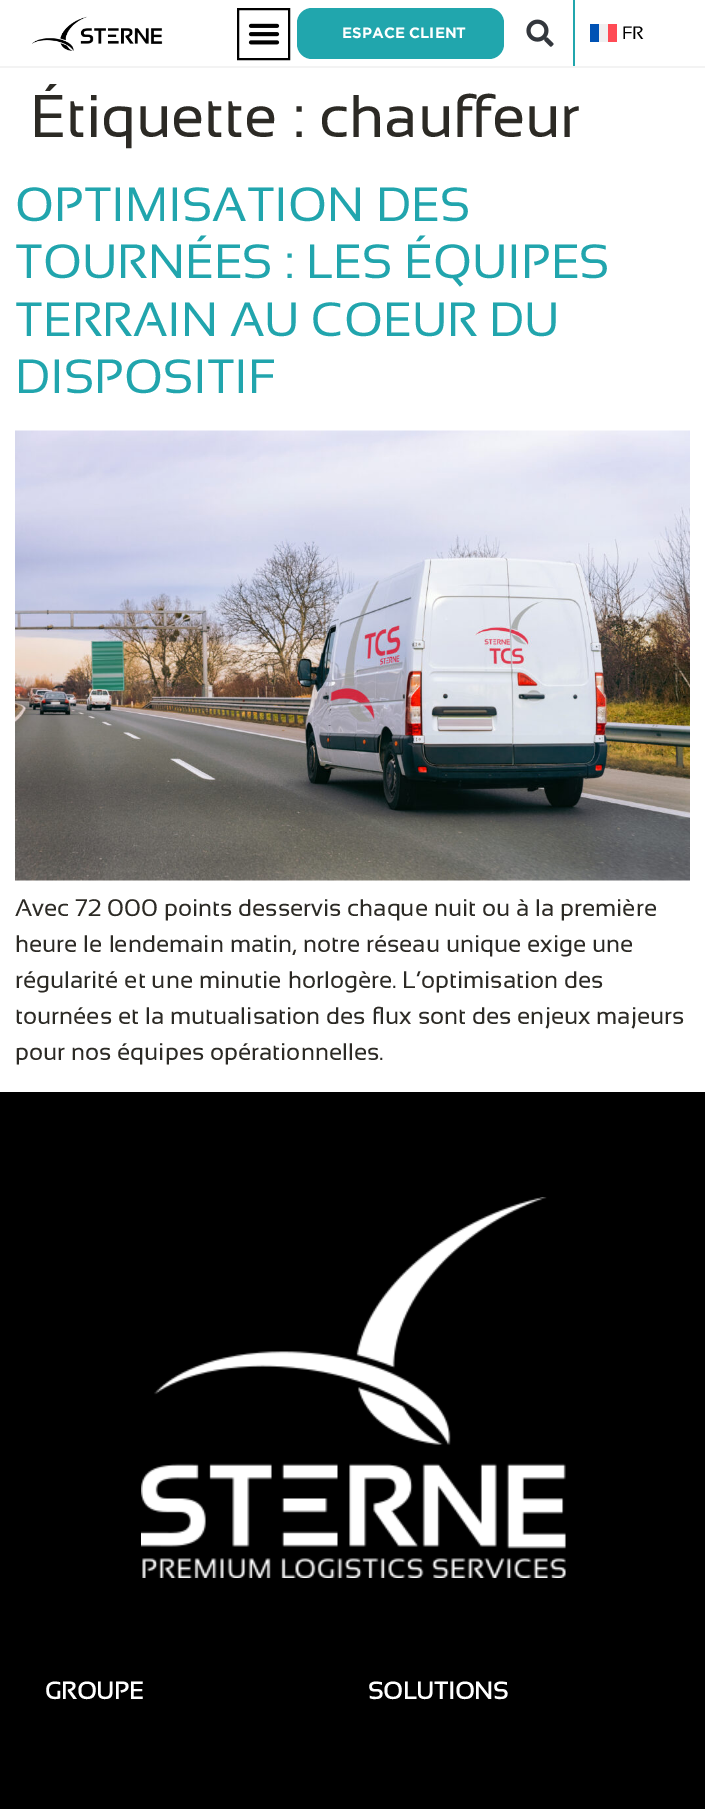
%!PS
<< /PageSize [705 1809] >> setpagedevice
/rgb { 3 { 255 div 3 1 roll } repeat setrgbcolor } def
/font { [ exch dup neg 0 0 3 -1 roll 0 0 ] selectfont } def
/text { moveto show } def
/roundrect { 5 dict begin { /r /h /w /y /x } { exch def } forall
  x r add y moveto x w add y 2 copy h add r arct x w add y h add x 1 index r arct
  x y h add x y r arct x y 2 copy exch w add exch r arct closepath end } def
/picture { 5 dict begin { /h /w /y /x /name } { exch def } forall
  gsave x y translate w h scale
  w h 8 [w 0 0 h 0 0] name (r) file false 3 colorimage grestore end } def
0 1809 translate 1 -1 scale
4 setmiterlimit
255 255 255 rgb
0 0 705 1809 rectfill
243 243 243 rgb
0 66 705 2 rectfill
(img_01.rgb) 32 16 131 35 picture
0 0 0 rgb
2 setlinewidth
238 9 51 50 rectstroke
(img_02.rgb) 248 23 32 22 picture
33 166 173 rgb
297 8 207 51 15 roundrect fill
(img_03.rgb) 526 19 28 28 picture
573 0 2 66 rectfill
240 240 240 rgb
599 24 9 18 rectfill
255 75 85 rgb
608 24 9 18 rectfill
0 82 180 rgb
590 24 9 18 rectfill
(img_04.rgb) 15 430 675 451 picture
0 0 0 rgb
0 1092 705 717 rectfill
(img_05.rgb) 141 1197 425 381 picture
/Gotham-Bold 15 font
255 255 255 rgb
(ESPACE CLIENT) 342 38 text
/Sansation-Regular 18 font
0 0 0 rgb
(FR) 622 39 text
/Sansation-Regular 60 font
44 42 37 rgb
(Étiquette : chauffeur) 30 137 text
/Sansation-Regular 48 font
33 165 173 rgb
(OPTIMISATION DES) 15 221 text
(TOURNÉES : LES ÉQUIPES) 15 278 text
(TERRAIN AU COEUR DU) 15 336 text
(DISPOSITIF) 15 393 text
/Sansation-Regular 24 font
44 42 37 rgb
(Avec 72 000 points desservis chaque nuit ou à la première) 15 916 text
(heure le lendemain matin, notre réseau unique exige une) 15 952 text
(régularité et une minutie horlogère. L’optimisation des) 15 988 text
(tournées et la mutualisation des flux sont des enjeux majeurs) 15 1024 text
(pour nos équipes opérationnelles.) 15 1060 text
/Sansation-Bold 24 font
255 255 255 rgb
(GROUPE) 45 1699 text
(SOLUTIONS) 368 1699 text
showpage
